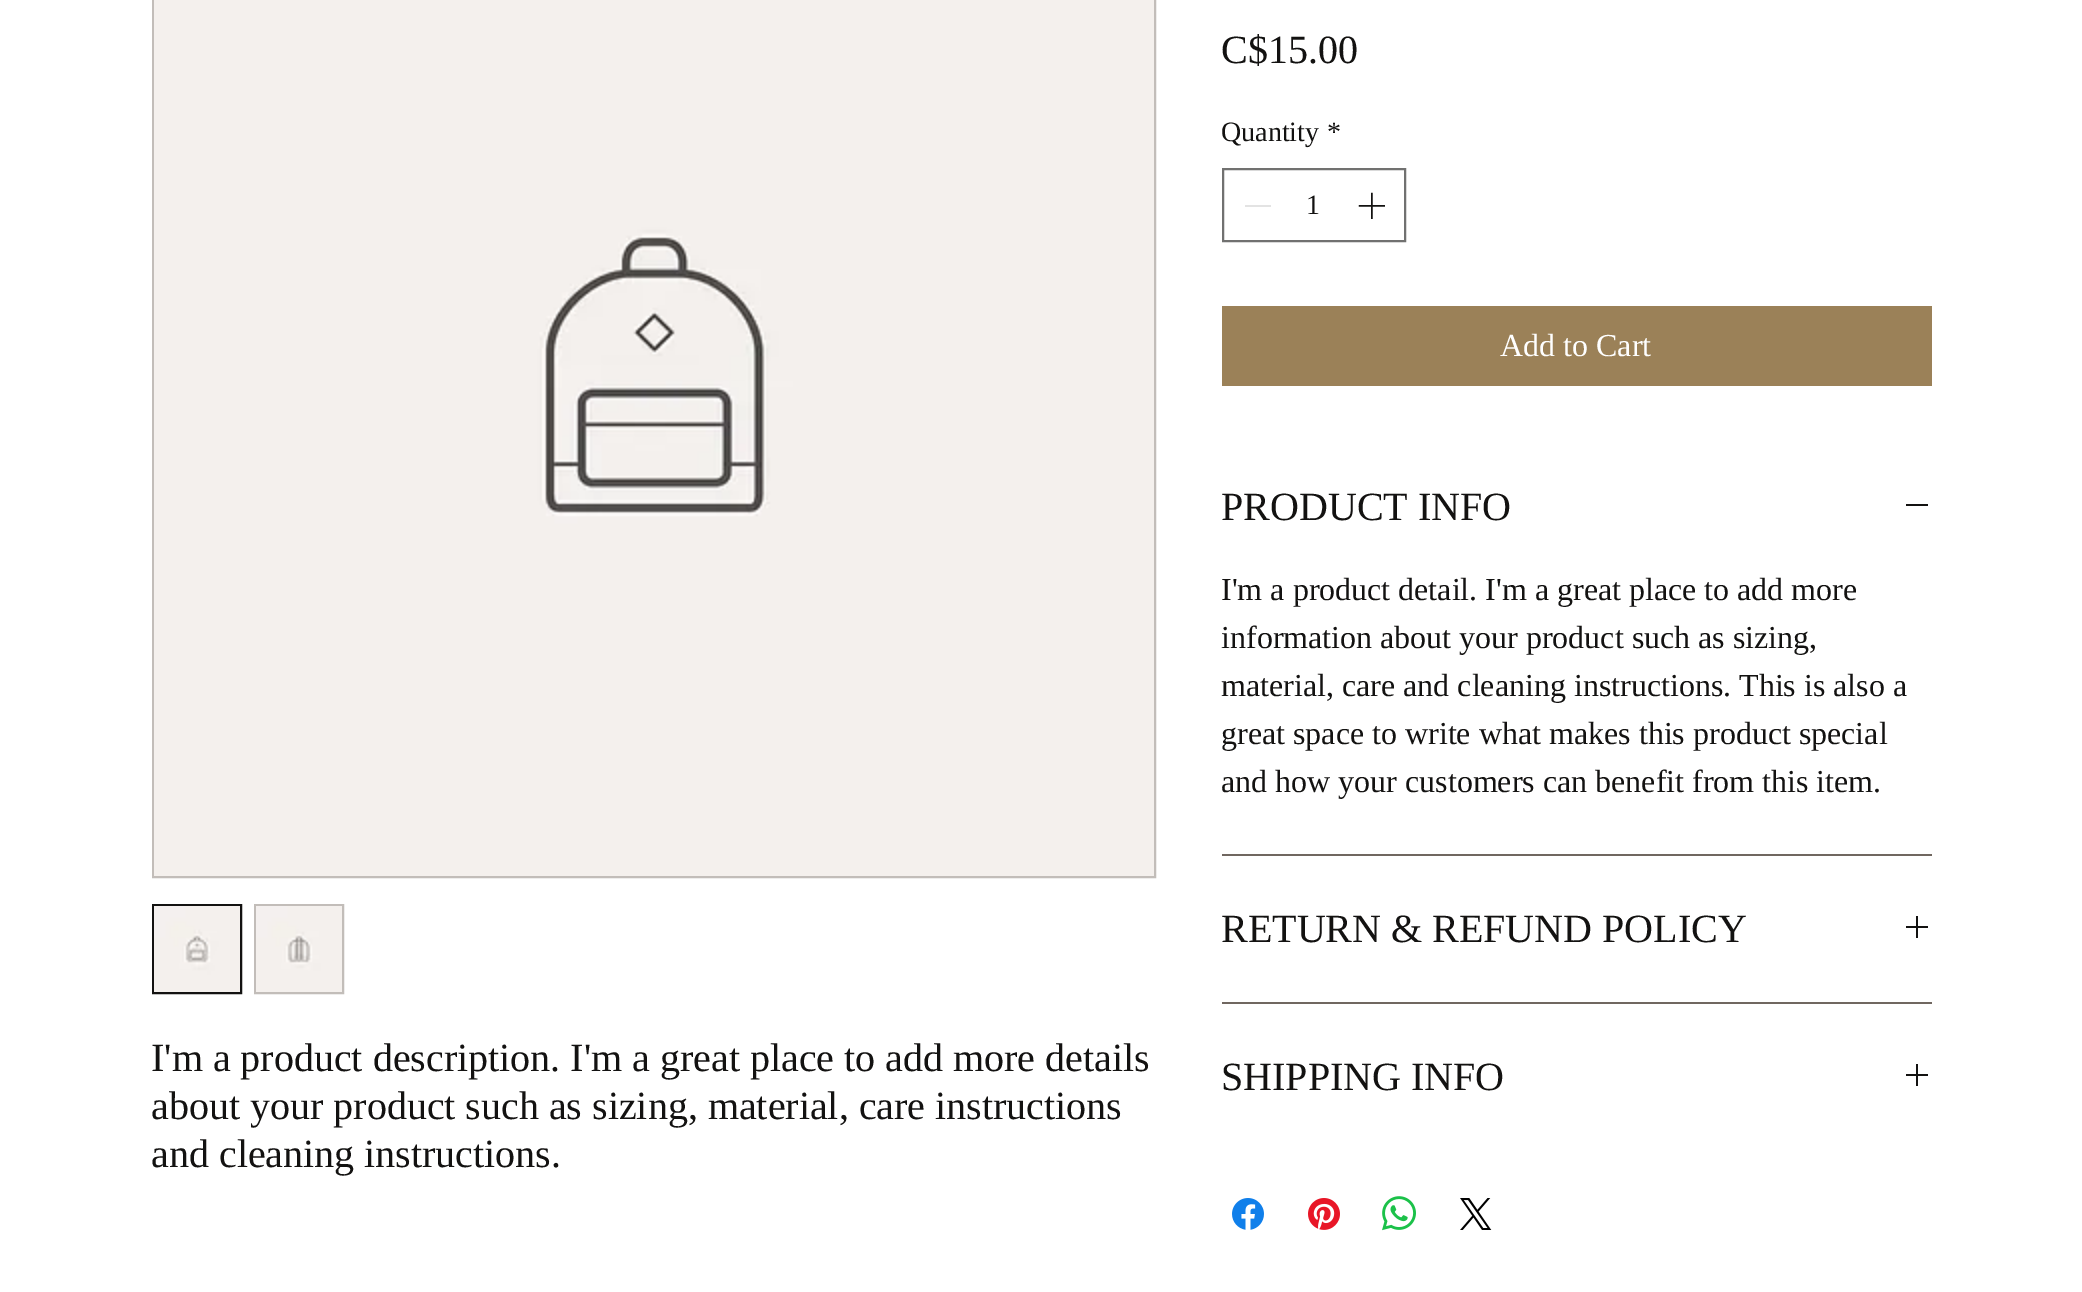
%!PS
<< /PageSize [2082 1292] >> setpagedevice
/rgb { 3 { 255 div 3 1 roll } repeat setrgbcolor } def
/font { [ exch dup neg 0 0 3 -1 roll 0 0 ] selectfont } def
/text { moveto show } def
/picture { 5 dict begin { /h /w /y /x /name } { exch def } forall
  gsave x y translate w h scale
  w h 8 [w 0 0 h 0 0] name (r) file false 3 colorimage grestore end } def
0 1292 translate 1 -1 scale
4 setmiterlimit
255 255 255 rgb
0 0 2082 1292 rectfill
113 113 112 rgb
2 setlinewidth
1223 169 182 72 rectstroke
227 227 227 rgb
1245 205 26 2 rectfill
(img_01.rgb) 1358 192 27 27 picture
155 129 88 rgb
1222 306 710 80 rectfill
112 103 96 rgb
1222 854 710 2 rectfill
19 18 17 rgb
1906 504 22 2 rectfill
112 103 96 rgb
1222 1002 710 2 rectfill
(img_02.rgb) 1906 916 22 22 picture
(img_02.rgb) 1906 1064 22 22 picture
(img_03.rgb) 1232 1198 32 32 picture
(img_04.rgb) 1308 1198 32 32 picture
(img_05.rgb) 1382 1196 34 35 picture
(img_06.rgb) 1460 1198 32 32 picture
194 189 185 rgb
153 -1 1002 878 rectstroke
(img_07.rgb) 154 0 1000 876 picture
19 18 17 rgb
153 905 88 88 rectstroke
(img_08.rgb) 154 906 86 86 picture
194 189 185 rgb
255 905 88 88 rectstroke
(img_09.rgb) 256 906 86 86 picture
/LiberationSerif-Regular 40 font
19 18 17 rgb
(C$15.00) 1221 63 text
/LiberationSerif-Regular 28 font
(Quantity) 1221 141 text
(*) 1327 141 text
(1) 1306 214 text
/LiberationSerif-Regular 32 font
255 255 255 rgb
(Add to Cart) 1500 356 text
/LiberationSerif-Regular 40 font
19 18 17 rgb
(PRODUCT INFO) 1221 520 text
/LiberationSerif-Regular 32 font
(I'm a product detail. I'm a great place to add more) 1221 600 text
(information about your product such as sizing,) 1221 648 text
(material, care and cleaning instructions. This is also a) 1221 696 text
(great space to write what makes this product special) 1221 744 text
(and how your customers can benefit from this item.) 1221 792 text
/LiberationSerif-Regular 40 font
(RETURN & REFUND POLICY) 1221 942 text
(SHIPPING INFO) 1221 1090 text
(I'm a product description. I'm a great place to add more details) 151 1071 text
(about your product such as sizing, material, care instructions) 151 1119 text
(and cleaning instructions.) 151 1167 text
showpage
